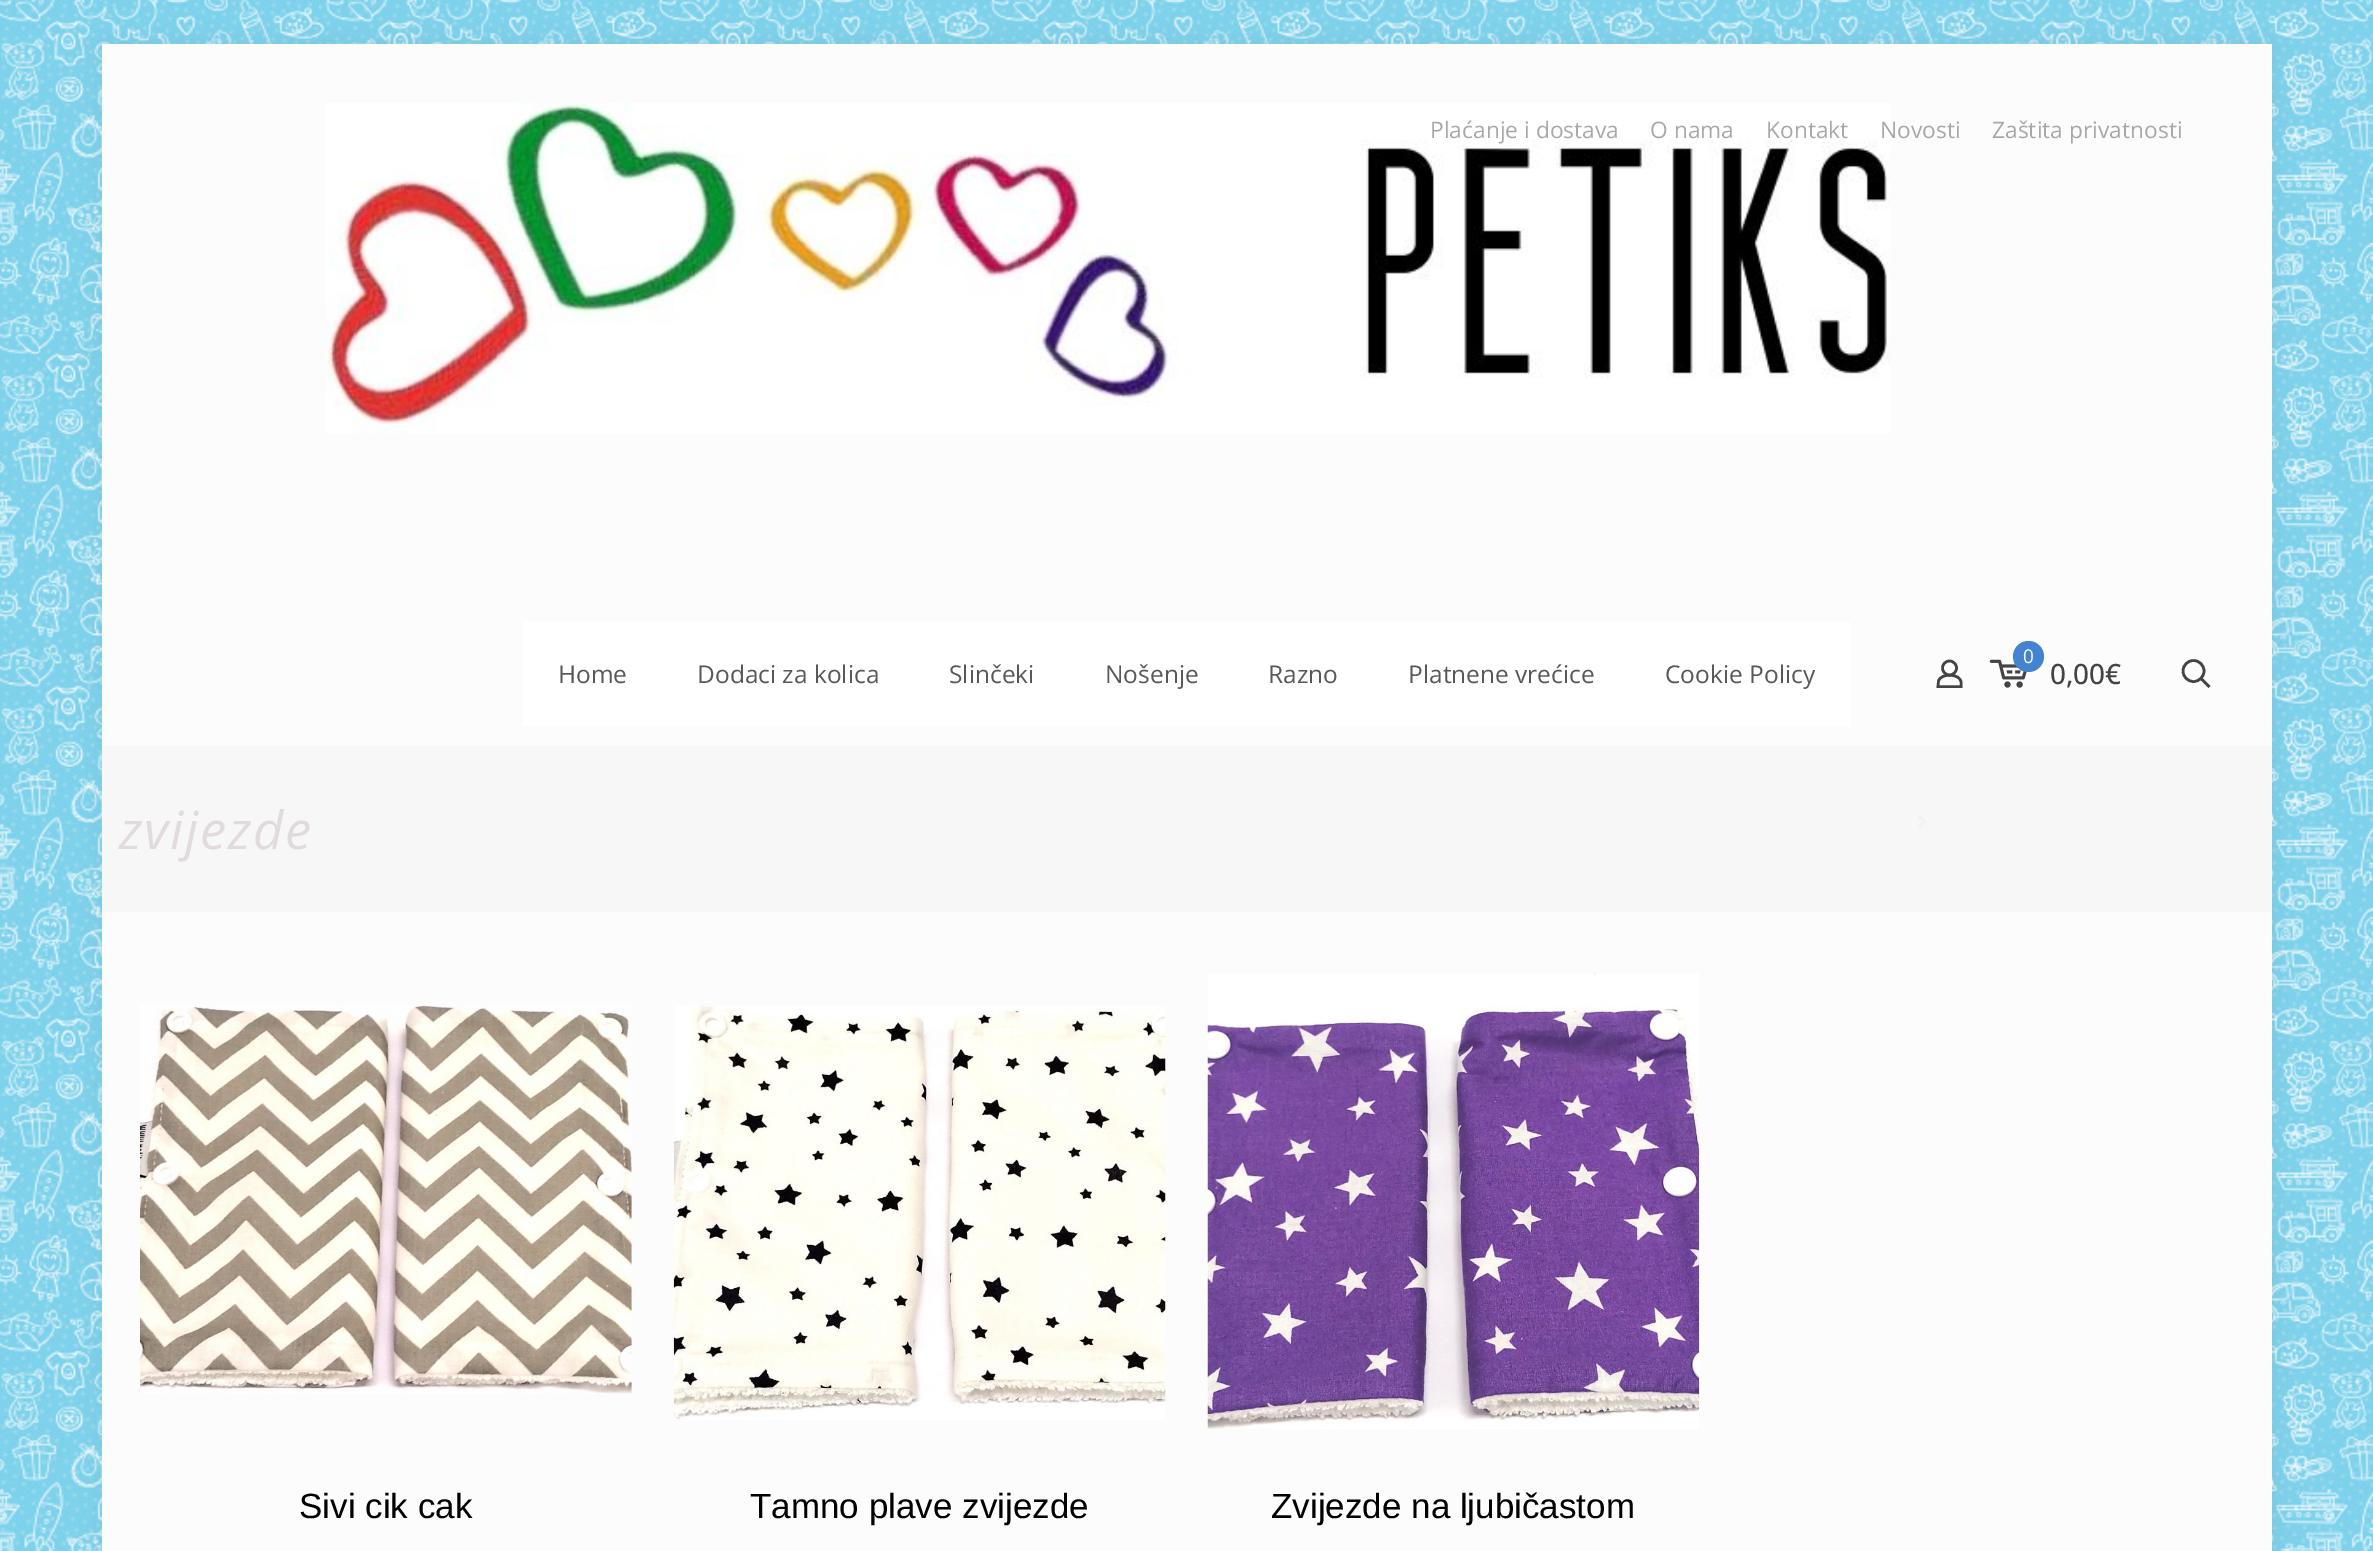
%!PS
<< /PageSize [2373 1551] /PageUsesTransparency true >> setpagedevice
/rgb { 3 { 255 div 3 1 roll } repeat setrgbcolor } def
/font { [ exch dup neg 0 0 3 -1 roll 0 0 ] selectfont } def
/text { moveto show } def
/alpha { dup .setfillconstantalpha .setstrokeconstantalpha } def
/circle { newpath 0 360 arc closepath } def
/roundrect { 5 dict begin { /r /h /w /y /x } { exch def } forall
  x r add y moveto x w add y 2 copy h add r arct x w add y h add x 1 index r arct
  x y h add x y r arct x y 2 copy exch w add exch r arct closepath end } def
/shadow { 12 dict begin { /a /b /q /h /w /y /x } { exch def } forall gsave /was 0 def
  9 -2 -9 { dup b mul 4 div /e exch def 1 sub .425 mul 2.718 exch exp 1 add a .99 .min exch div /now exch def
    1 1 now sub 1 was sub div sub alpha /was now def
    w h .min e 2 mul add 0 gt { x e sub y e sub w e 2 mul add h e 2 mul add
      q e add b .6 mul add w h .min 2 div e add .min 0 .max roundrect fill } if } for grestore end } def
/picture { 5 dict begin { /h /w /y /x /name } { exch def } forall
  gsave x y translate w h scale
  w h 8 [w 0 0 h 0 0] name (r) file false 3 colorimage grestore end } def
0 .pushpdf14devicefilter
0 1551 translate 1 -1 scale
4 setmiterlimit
255 255 255 rgb
0 0 2373 1551 rectfill
(img_01.rgb) 0 0 2373 1551 picture
0 0 0 rgb
102 44 2170 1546 0 13 0.06 shadow
252 252 252 rgb
102 912 2170 639 rectfill
102 44 2170 702 rectfill
(img_02.rgb) 326 103 1564 331 picture
255 255 255 rgb
523 621 1327 105 rectfill
68 68 68 rgb
2.6 setlinewidth
1949.5 668 7 circle stroke
1961 682.5 moveto 0 4 rlineto -23 0 rlineto 0.5 -5.5 rlineto 2.5 -8.5 22.5 -7.5 22.5 1.5 rcurveto closepath stroke
(img_03.rgb) 1989 659 38 29 picture
67 131 208 rgb
2028.5 656.5 15.5 circle fill
68 68 68 rgb
2193.5 671 10.5 circle stroke
2201 678.5 moveto 8.5 8.5 rlineto stroke
247 247 247 rgb
102 746 2170 166 rectfill
(img_04.rgb) 1918 815 8 13 picture
(img_05.rgb) 140 1004 492 390 picture
(img_06.rgb) 673 1005 493 415 picture
(img_07.rgb) 1207 973 493 456 picture
/OpenSans-Regular 22.75 font
168 168 168 rgb
(Plaćanje i dostava) 1430 138 text
(O nama) 1650 138 text
(Kontakt) 1766 138 text
(Novosti) 1880 138 text
(Zaštita privatnosti) 1992 138 text
/OpenSans-Regular 24.5 font
88 88 88 rgb
(Home) 558 683 text
(Dodaci za kolica) 697 683 text
(Slinčeki) 949 683 text
(Nošenje) 1105 683 text
(Razno) 1268 683 text
(Platnene vrećice) 1408 683 text
(Cookie Policy) 1665 683 text
/OpenSans-Regular 19 font
255 255 255 rgb
(0) 2023 663 text
/OpenSans-Medium 28 font
68 68 68 rgb
(0,00€) 2050 684 text
/OpenSans-Italic 52.5 font
225 219 219 rgb
119 849 moveto 1.75 0 (zvijezde) ashow
/LiberationSans-Regular 35 font
0 0 0 rgb
(Sivi cik cak) 299 1518 text
(Tamno plave zvijezde) 750 1518 text
(Zvijezde na ljubičastom) 1271 1518 text
.poppdf14devicefilter showpage
